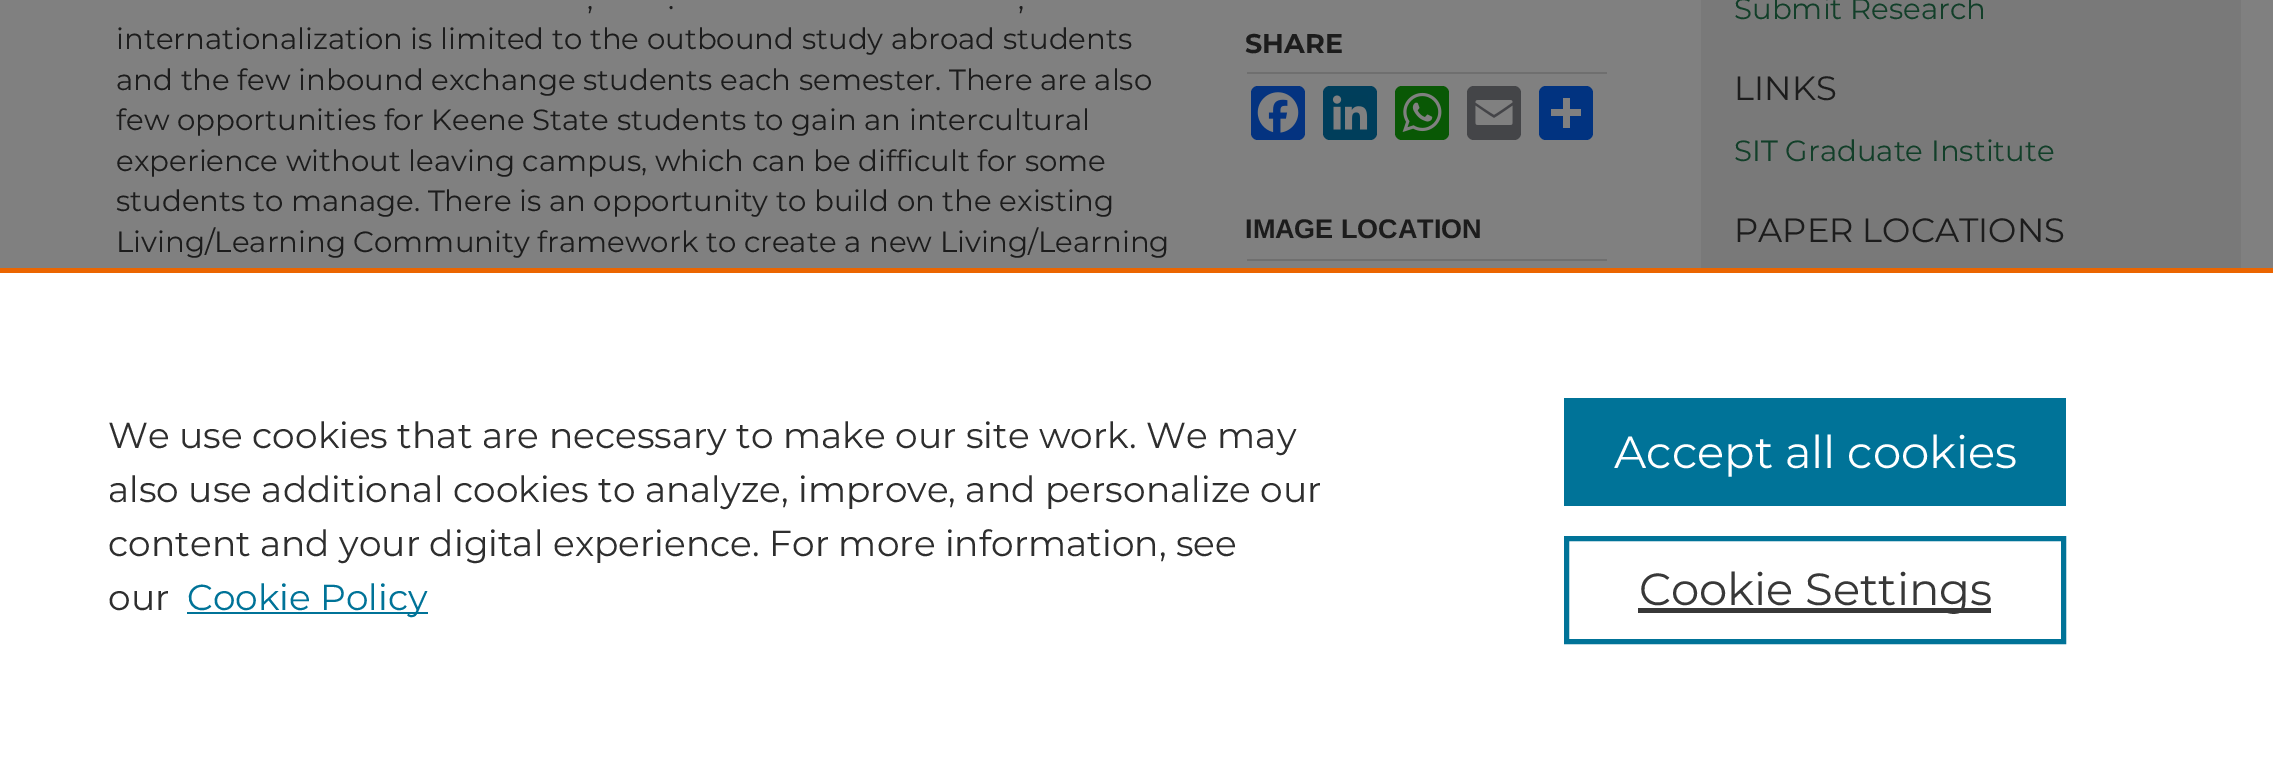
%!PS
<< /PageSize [2273 761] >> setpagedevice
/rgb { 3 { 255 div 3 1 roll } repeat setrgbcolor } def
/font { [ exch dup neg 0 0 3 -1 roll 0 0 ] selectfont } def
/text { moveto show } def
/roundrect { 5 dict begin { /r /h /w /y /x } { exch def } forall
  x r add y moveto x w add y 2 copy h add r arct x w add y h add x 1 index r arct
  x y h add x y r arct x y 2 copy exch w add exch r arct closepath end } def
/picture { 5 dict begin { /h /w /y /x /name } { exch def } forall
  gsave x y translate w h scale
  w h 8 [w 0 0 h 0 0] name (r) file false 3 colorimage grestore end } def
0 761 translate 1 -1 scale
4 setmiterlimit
128 128 128 rgb
0 0 2273 761 rectfill
111 111 111 rgb
1247 72 360 2 rectfill
4 51 128 rgb
1251 86 54 54 7 roundrect fill
(img_01.rgb) 1257 92 42 41 picture
0 62 91 rgb
1323 86 54 54 7 roundrect fill
(img_02.rgb) 1332 95 36 35 picture
9 88 5 rgb
1395 86 54 54 7 roundrect fill
(img_03.rgb) 1402 92 40 40 picture
68 69 72 rgb
1467 86 54 54 7 roundrect fill
(img_04.rgb) 1475 100 38 25 picture
1 51 128 rgb
1539 86 54 54 7 roundrect fill
128 128 128 rgb
1563 98 7 30 rectfill
1551 109 30 7 rectfill
111 111 111 rgb
1247 259 360 2 rectfill
121 121 121 rgb
1701 0 540 268 rectfill
255 255 255 rgb
0 273 2273 488 rectfill
235 101 0 rgb
0 268 2273 5 rectfill
0 115 152 rgb
187 612 241 2 rectfill
1564 398 502 108 rectfill
5 setlinewidth
1566.5 538.5 497 103 rectstroke
56 56 56 rgb
1638 608 353 5 rectfill
/Montserrat-Regular 29.25 font
28 28 28 rgb
(,) 587 9 text
(.) 668 9 text
(,) 1018 9 text
(internationalization is limited to the outbound study abroad students) 116 49 text
(and the few inbound exchange students each semester. There are also) 116 90 text
(few opportunities for Keene State students to gain an intercultural) 116 130 text
(experience without leaving campus, which can be difficult for some) 116 171 text
(students to manage. There is an opportunity to build on the existing) 116 211 text
(Living/Learning Community framework to create a new Living/Learning) 116 252 text
/Montserrat-Bold 27 font
(SHARE) 1245 53 text
/LiberationSans-Bold 27 font
(IMAGE LOCATION) 1245 238 text
/Montserrat-Regular 29.25 font
18 63 41 rgb
(Submit Research) 1734 19 text
/Montserrat-Regular 33.75 font
28 28 28 rgb
(LINKS) 1734 100 text
/Montserrat-Regular 29.25 font
18 63 41 rgb
(SIT Graduate Institute) 1734 161 text
/Montserrat-Regular 33.75 font
28 28 28 rgb
(PAPER LOCATIONS) 1734 242 text
/Montserrat-Regular 36 font
46 46 46 rgb
(We use cookies that are necessary to make our site work. We may) 108 448 text
(also use additional cookies to analyze, improve, and personalize our) 108 502 text
(content and your digital experience. For more information, see) 108 556 text
(our) 108 610 text
0 115 152 rgb
(Cookie Policy) 187 610 text
/Montserrat-Regular 45 font
255 255 255 rgb
(Accept all cookies) 1614 468 text
56 56 56 rgb
(Cookie Settings) 1639 605 text
showpage
